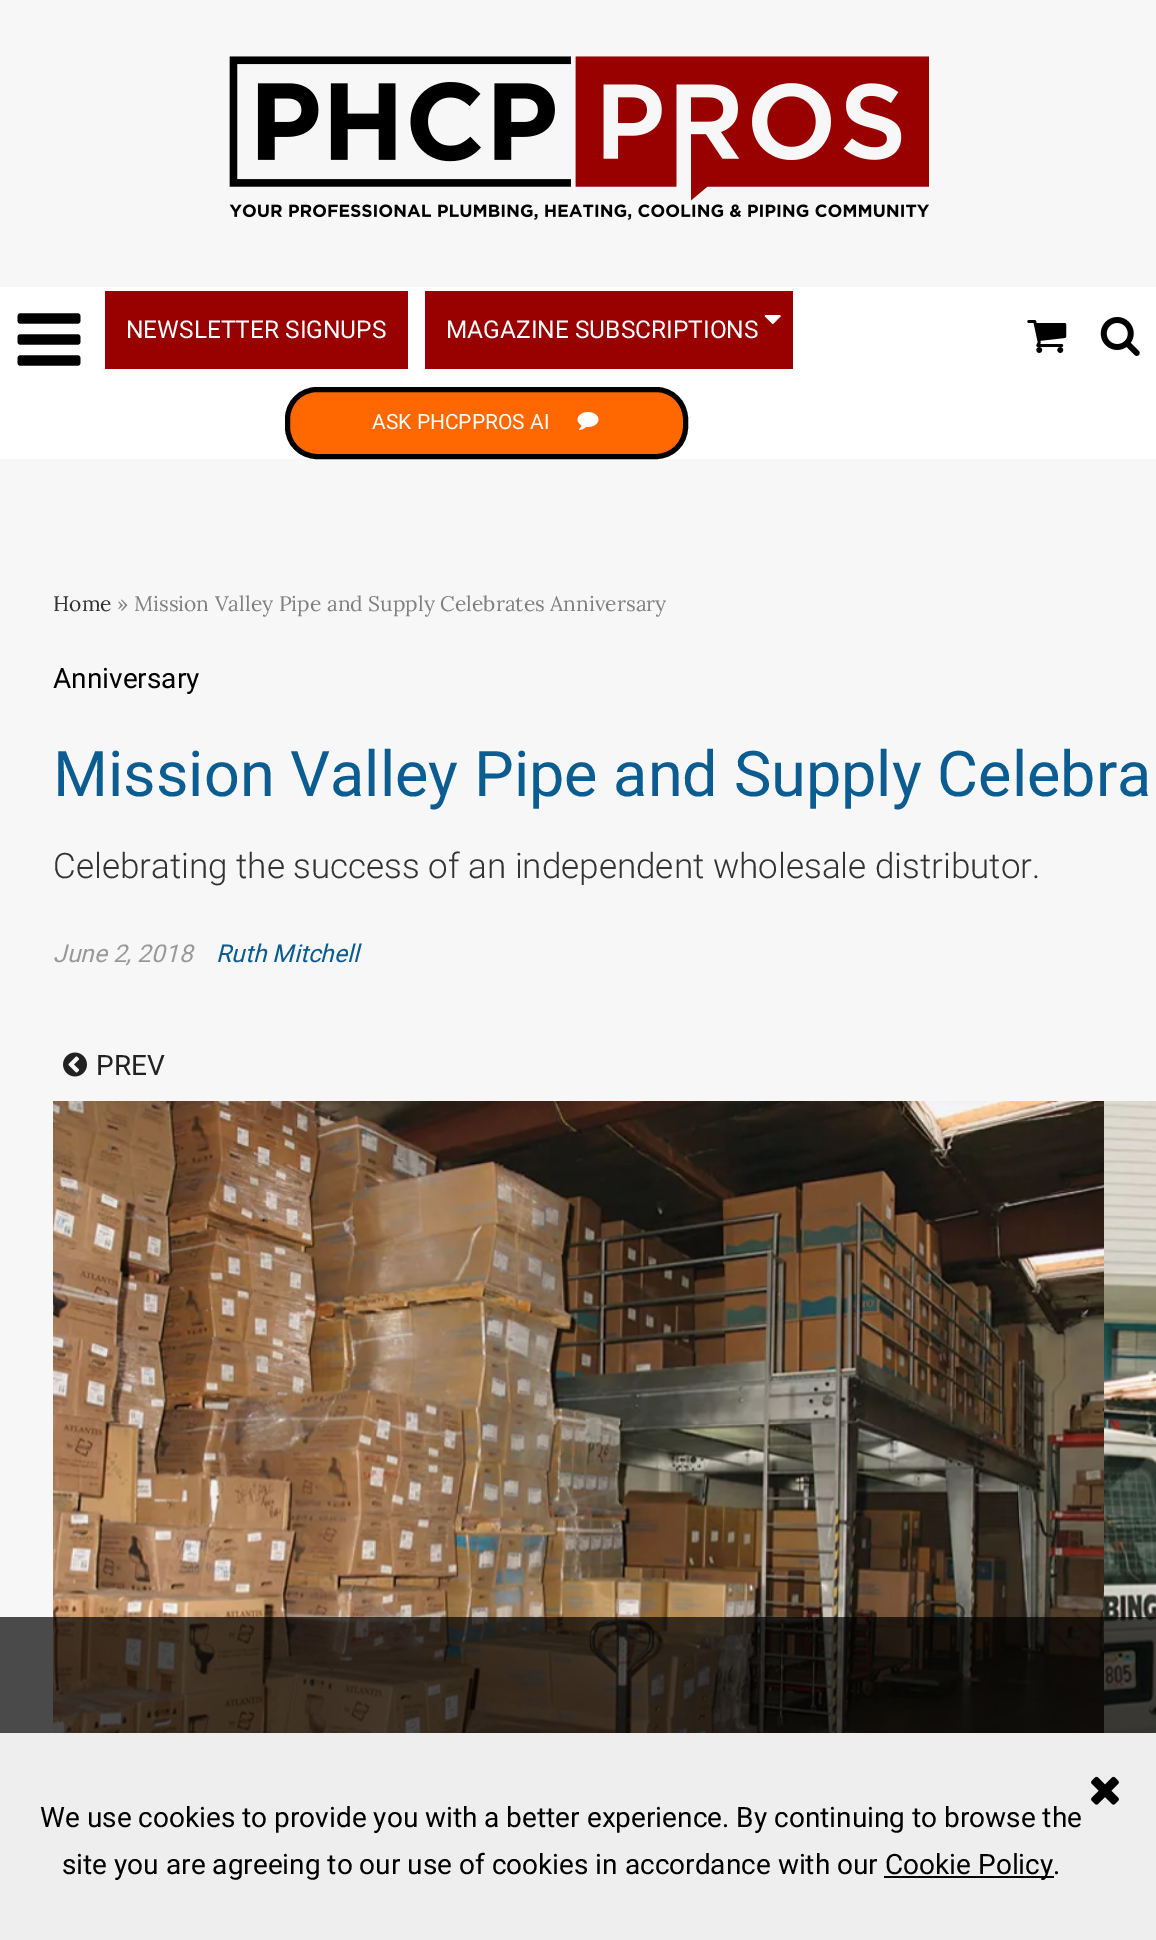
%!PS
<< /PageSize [1156 1940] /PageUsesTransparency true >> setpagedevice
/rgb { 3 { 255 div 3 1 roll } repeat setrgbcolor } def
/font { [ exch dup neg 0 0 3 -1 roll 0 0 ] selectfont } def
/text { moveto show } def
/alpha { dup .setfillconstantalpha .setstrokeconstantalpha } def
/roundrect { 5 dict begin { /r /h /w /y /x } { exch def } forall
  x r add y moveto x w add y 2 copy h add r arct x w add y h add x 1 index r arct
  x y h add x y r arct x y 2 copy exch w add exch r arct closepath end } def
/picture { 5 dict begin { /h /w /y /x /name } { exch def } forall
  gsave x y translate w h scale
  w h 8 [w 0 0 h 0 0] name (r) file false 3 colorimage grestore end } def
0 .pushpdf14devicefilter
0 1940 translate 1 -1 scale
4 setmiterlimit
247 247 247 rgb
0 0 1156 1940 rectfill
(img_01.rgb) 229 56 700 164 picture
255 255 255 rgb
0 287 1156 172 rectfill
(img_02.rgb) 17 313 64 53 picture
153 0 0 rgb
105 291 303 78 rectfill
425 291 368 78 rectfill
(img_03.rgb) 764 315 17 9 picture
255 103 0 rgb
287.5 389.5 398 67 29.5 roundrect gsave fill grestore
0 0 0 rgb
5 setlinewidth
stroke
(img_04.rgb) 577 412 22 18 picture
(img_05.rgb) 1027 320 40 33 picture
(img_06.rgb) 1100 317 40 39 picture
(img_07.rgb) 63 1052 24 25 picture
(img_08.rgb) 53 1101 1051 632 picture
(img_09.rgb) 1104 1101 52 632 picture
0.7 alpha
0 1617 1156 116 rectfill
1 alpha
238 238 238 rgb
0 1733 1156 207 rectfill
(img_10.rgb) 1091 1776 28 29 picture
0 0 0 rgb
884 1876 170 2 rectfill
/Roboto-Regular 24.5 font
255 255 255 rgb
(NEWSLETTER SIGNUPS) 126 338 text
(MAGAZINE SUBSCRIPTIONS) 446 338 text
/Roboto-Regular 21 font
(ASK PHCPPROS AI) 372 429 text
/Lora-Regular 21 font
51 51 51 rgb
(Home) 53 611 text
128 128 128 rgb
(» Mission Valley Pipe and Supply Celebrates Anniversary) 117 611 text
/Roboto-Regular 28 font
0 0 0 rgb
(Anniversary) 53 688 text
/Roboto-Regular 63 font
11 92 145 rgb
(Mission Valley Pipe and Supply Celebra) 53 796 text
/Roboto-Light 35 font
51 51 51 rgb
(Celebrating the success of an independent wholesale distributor.) 53 878 text
/Roboto-Italic 24.5 font
153 153 153 rgb
(June 2, 2018) 53 962 text
11 92 145 rgb
(Ruth Mitchell) 216 962 text
/Roboto-Regular 28 font
34 34 34 rgb
(PREV) 96 1075 text
0 0 0 rgb
(We use cookies to provide you with a better experience. By continuing to browse the) 40 1827 text
(site you are agreeing to our use of cookies in accordance with our) 62 1874 text
(Cookie Policy.) 885 1874 text
.poppdf14devicefilter showpage
